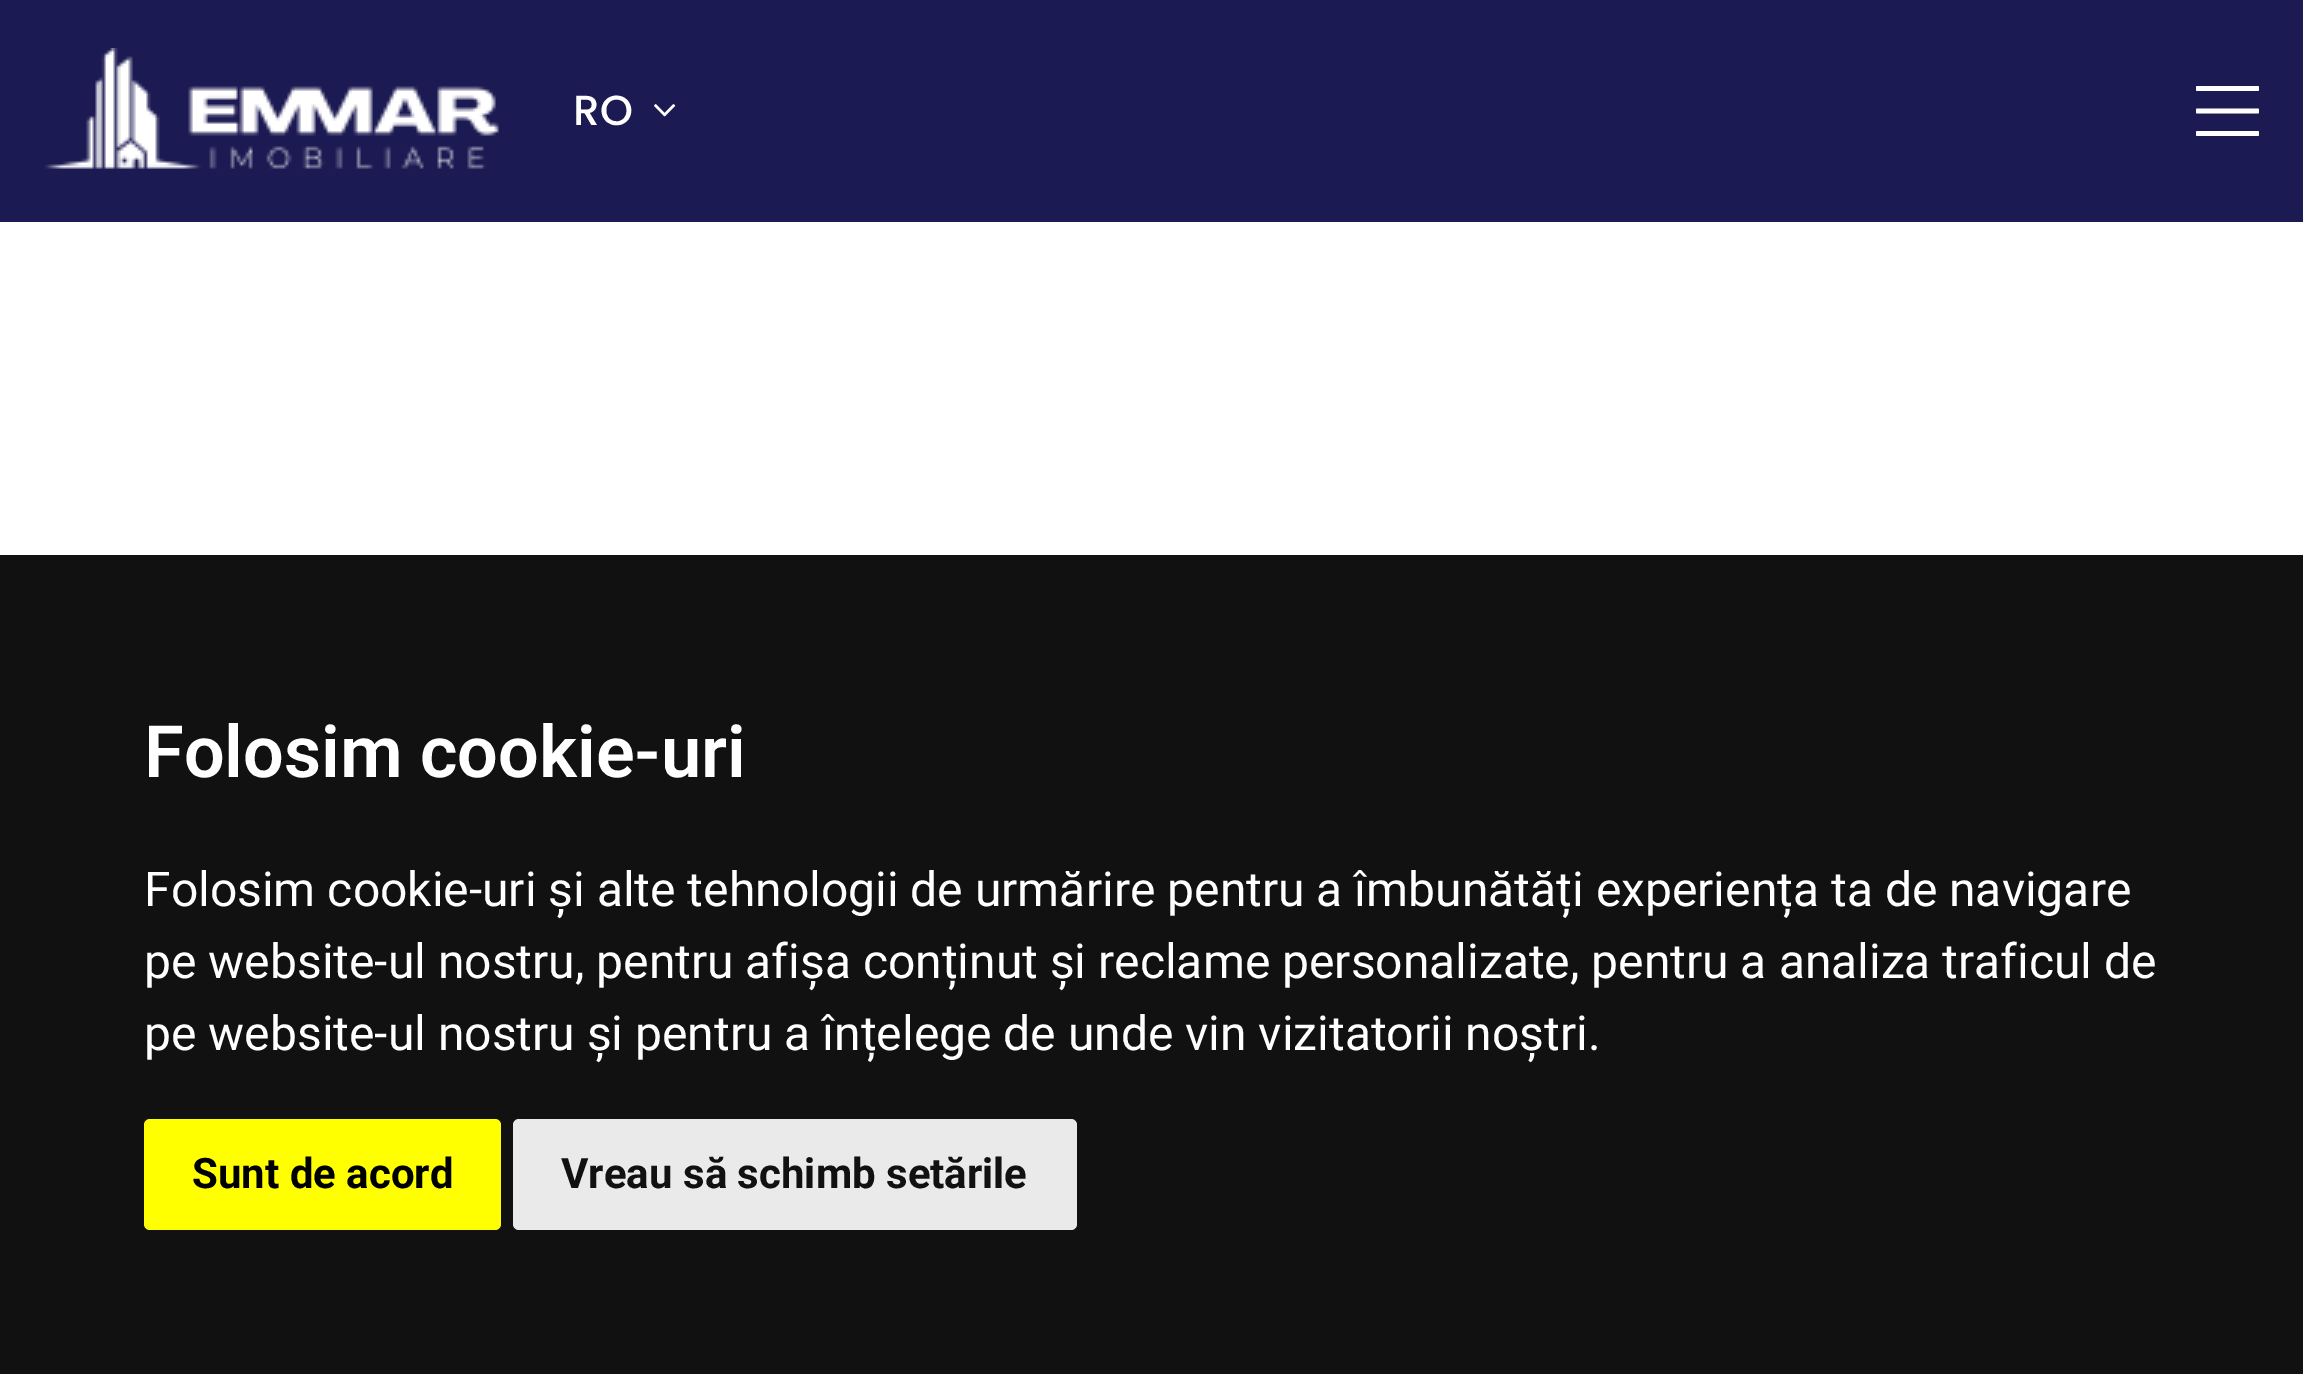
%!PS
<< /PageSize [2303 1374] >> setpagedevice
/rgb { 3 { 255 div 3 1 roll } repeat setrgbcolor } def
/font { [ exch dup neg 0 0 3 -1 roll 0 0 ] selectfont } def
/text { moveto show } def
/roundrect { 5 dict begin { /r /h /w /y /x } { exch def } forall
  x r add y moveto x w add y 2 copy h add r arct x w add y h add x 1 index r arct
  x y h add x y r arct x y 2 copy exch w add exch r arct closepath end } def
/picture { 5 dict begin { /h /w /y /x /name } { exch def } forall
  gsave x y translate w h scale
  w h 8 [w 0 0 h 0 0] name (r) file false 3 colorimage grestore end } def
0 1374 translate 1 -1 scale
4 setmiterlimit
255 255 255 rgb
0 0 2303 1374 rectfill
28 26 82 rgb
0 0 2303 222 rectfill
(img_01.rgb) 45 48 454 121 picture
(img_02.rgb) 654 104 22 13 picture
(img_03.rgb) 2196 86 63 50 picture
17 17 17 rgb
0 555 2303 819 rectfill
255 255 0 rgb
144 1119 357 111 6 roundrect fill
234 234 234 rgb
513 1119 564 111 6 roundrect fill
/Poppins-Medium 42 font
255 255 255 rgb
(RO) 573 125 text
/Roboto-SemiBold 72 font
(Folosim cookie-uri) 144 777 text
/Roboto-Regular 48 font
(Folosim cookie-uri și alte tehnologii de urmărire pentru a îmbunătăți experiența ta de navigare) 144 906 text
(pe website-ul nostru, pentru afișa conținut și reclame personalizate, pentru a analiza traficul de) 144 978 text
(pe website-ul nostru și pentru a înțelege de unde vin vizitatorii noștri.) 144 1050 text
/Roboto-Bold 42 font
0 0 0 rgb
(Sunt de acord) 192 1188 text
17 17 17 rgb
(Vreau să schimb setările) 561 1188 text
showpage
